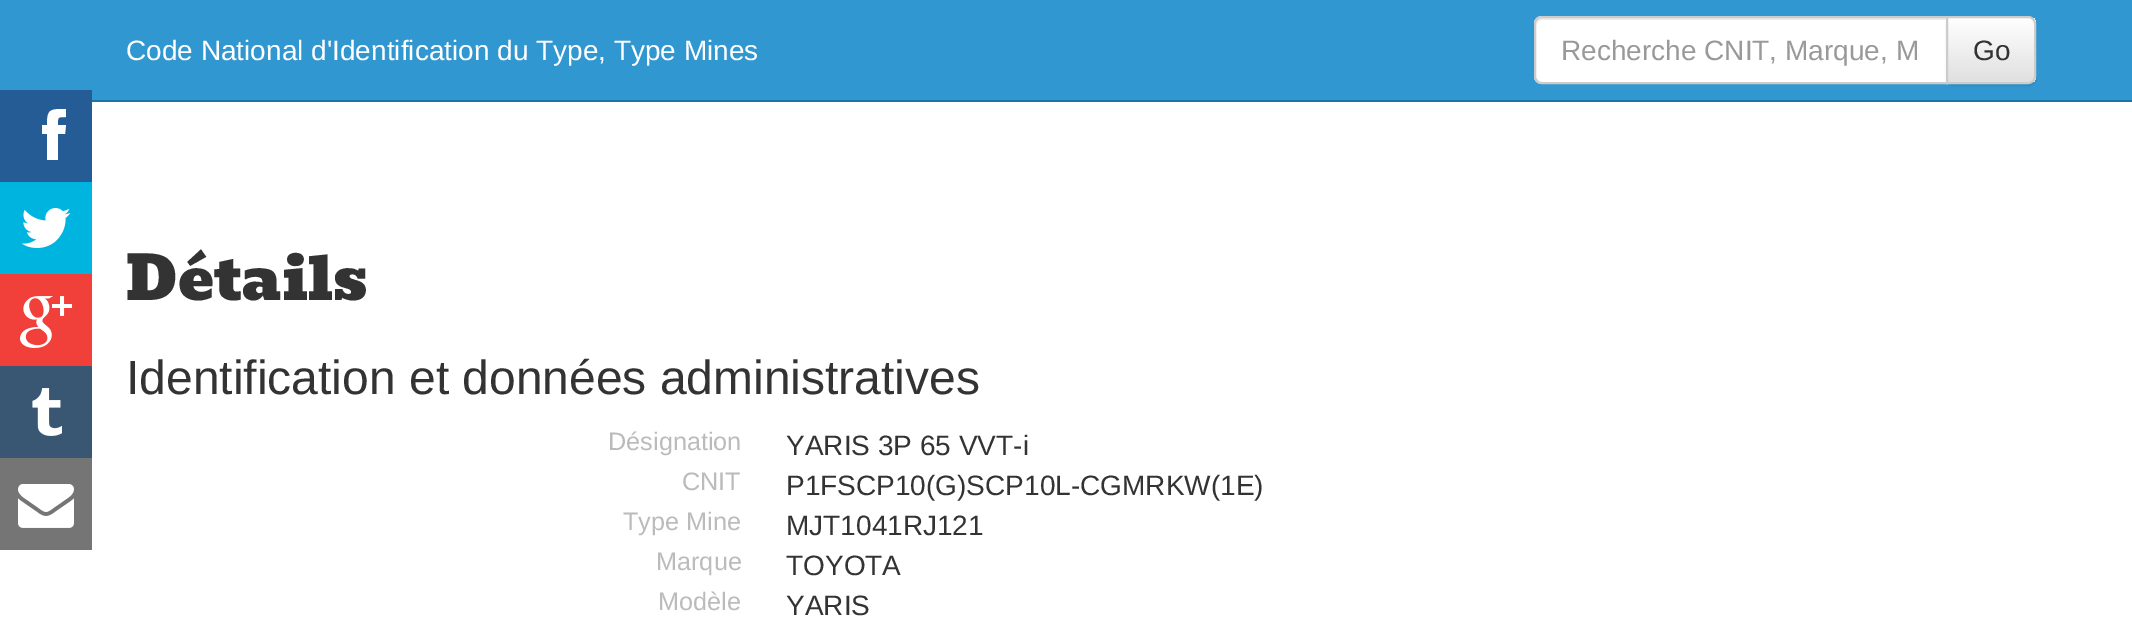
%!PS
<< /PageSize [2132 637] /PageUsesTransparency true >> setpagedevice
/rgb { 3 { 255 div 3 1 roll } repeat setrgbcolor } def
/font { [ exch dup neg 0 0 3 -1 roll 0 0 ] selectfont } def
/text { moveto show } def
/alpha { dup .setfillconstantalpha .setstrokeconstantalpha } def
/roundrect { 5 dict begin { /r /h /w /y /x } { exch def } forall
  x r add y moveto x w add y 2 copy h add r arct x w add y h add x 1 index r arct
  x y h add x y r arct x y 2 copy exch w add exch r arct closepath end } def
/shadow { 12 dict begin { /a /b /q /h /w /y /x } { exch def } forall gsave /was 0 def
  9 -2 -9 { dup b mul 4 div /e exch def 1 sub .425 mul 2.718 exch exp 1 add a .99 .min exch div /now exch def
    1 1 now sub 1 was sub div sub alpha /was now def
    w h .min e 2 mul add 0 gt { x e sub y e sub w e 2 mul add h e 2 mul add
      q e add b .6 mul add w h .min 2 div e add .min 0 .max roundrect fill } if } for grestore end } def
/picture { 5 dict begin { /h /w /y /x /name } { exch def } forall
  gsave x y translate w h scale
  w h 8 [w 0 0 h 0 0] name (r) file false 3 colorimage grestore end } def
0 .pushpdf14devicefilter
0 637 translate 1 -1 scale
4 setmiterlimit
255 255 255 rgb
0 0 2132 637 rectfill
48 151 209 rgb
0 0 2132 100 rectfill
28 115 165 rgb
92 100 2040 2 rectfill
255 255 255 rgb
1542 16 moveto 406 0 rlineto 0 68 rlineto -406 0 rlineto -4.5 0 -8 -3.5 -8 -8 rcurveto 0 -52 rlineto 0 -4.5 3.5 -8 8 -8 rcurveto closepath fill
236 236 236 rgb
1542 20 moveto 404 0 rlineto 0 -2 rlineto -404 0 rlineto -3 0 -6 3 -6 6 rcurveto 0 2 rlineto 0 -3 3 -6 6 -6 rcurveto closepath fill
204 204 204 rgb
2 setlinewidth
1542 17 moveto 405 0 rlineto 0 66 rlineto -405 0 rlineto -4 0 -7 -3 -7 -7 rcurveto 0 -52 rlineto 0 -4 3 -7 7 -7 rcurveto closepath stroke
0 0 0 rgb
1946 18 90 68 8 1 0.07 shadow
gsave
1946 16 moveto 82 0 rlineto 4.5 0 8 3.5 8 8 rcurveto 0 52 rlineto 0 4.5 -3.5 8 -8 8 rcurveto -82 0 rlineto closepath clip newpath
gsave 1948 18 moveto 88 0 rlineto 0 64 rlineto -88 0 rlineto closepath clip newpath
<< /ShadingType 2 /ColorSpace /DeviceRGB /Coords [1991 18 1991 82] /Extend [true true] /Function << /FunctionType 2 /Domain [0 1] /C0 [1 1 1] /C1 [0.878 0.878 0.878] /N 1 >> >> shfill grestore
grestore
204 204 204 rgb
1947 17 moveto 81 0 rlineto 4 0 7 3 7 7 rcurveto 0 52 rlineto 0 4 -3 7 -7 7 rcurveto -81 0 rlineto closepath stroke
37 92 149 rgb
0 90 92 92 rectfill
255 255 255 rgb
58 125 moveto 0 -8 -1 -8 8 -8 rcurveto 0 -8 rlineto -16 0 -19 0 -19 16 rcurveto -5 0 rlineto 0 9 rlineto 5 0 rlineto 0 26 rlineto 11 0 rlineto 0 -26 rlineto 7 0 rlineto 1 -9 rlineto closepath fill
0 180 224 rgb
0 182 92 92 rectfill
(img_01.rgb) 21 208 50 40 picture
241 64 58 rgb
0 274 92 92 rectfill
(img_02.rgb) 20 296 53 52 picture
57 87 115 rgb
0 366 92 92 rectfill
(img_03.rgb) 32 388 30 48 picture
117 117 117 rgb
0 458 92 92 rectfill
(img_04.rgb) 18 484 56 44 picture
/LiberationSans-Regular 28 font
255 255 255 rgb
(Code National d'Identification du Type, Type Mines) 126 60 text
153 153 153 rgb
(Recherche CNIT, Marque, M) 1561 60 text
51 51 51 rgb
(Go) 1973 60 text
/Bevan-Regular 60 font
(Détails) 126 300 text
/LiberationSans-Regular 48 font
(Identification et données administratives) 126 394 text
/LiberationSans-Regular 25.25 font
187 187 187 rgb
(Désignation) 608 450 text
/LiberationSans-Regular 28 font
51 51 51 rgb
(YARIS 3P 65 VVT-i) 786 455 text
/LiberationSans-Regular 25.25 font
187 187 187 rgb
(CNIT) 682 490 text
/LiberationSans-Regular 28 font
51 51 51 rgb
(P1FSCP10\(G\)SCP10L-CGMRKW\(1E\)) 786 495 text
/LiberationSans-Regular 25.25 font
187 187 187 rgb
(Type Mine) 623 530 text
/LiberationSans-Regular 28 font
51 51 51 rgb
(MJT1041RJ121) 786 535 text
/LiberationSans-Regular 25.25 font
187 187 187 rgb
(Marque) 656 570 text
/LiberationSans-Regular 28 font
51 51 51 rgb
(TOYOTA) 786 575 text
/LiberationSans-Regular 25.25 font
187 187 187 rgb
(Modèle) 658 610 text
/LiberationSans-Regular 28 font
51 51 51 rgb
(YARIS) 786 615 text
.poppdf14devicefilter showpage
